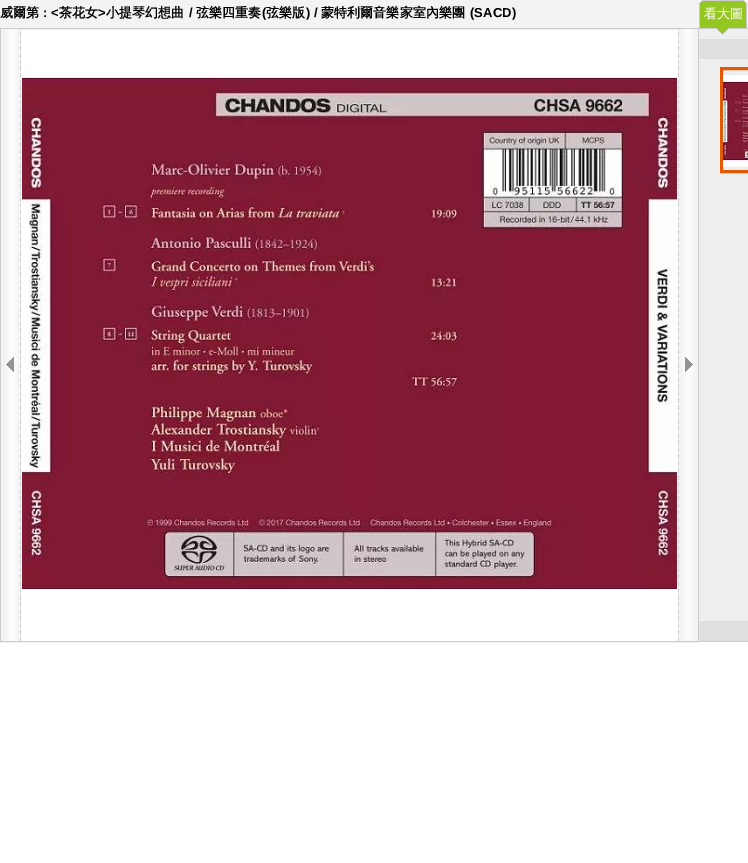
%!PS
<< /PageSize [748 863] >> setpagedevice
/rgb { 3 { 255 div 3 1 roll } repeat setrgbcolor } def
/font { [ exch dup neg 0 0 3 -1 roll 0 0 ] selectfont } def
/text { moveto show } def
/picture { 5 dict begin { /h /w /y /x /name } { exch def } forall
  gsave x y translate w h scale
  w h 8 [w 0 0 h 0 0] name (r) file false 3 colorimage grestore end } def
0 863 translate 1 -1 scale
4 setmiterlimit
255 255 255 rgb
0 0 748 863 rectfill
243 243 243 rgb
0 0 748 28 rectfill
204 204 204 rgb
0.5 28.5 698 613 rectstroke
(img_01.rgb) 1 29 20 612 picture
(img_02.rgb) 22 76 655 514 picture
(img_03.rgb) 678 29 20 612 picture
699 0 48 1 rectfill
746 0 1 28 rectfill
699 0 1 28 rectfill
148 199 34 rgb
700 1 46 27 rectfill
(img_04.rgb) 699 0 4 4 picture
(img_05.rgb) 743 0 4 4 picture
238 238 238 rgb
699 29 49 592 rectfill
207 207 207 rgb
699 28 49 1 rectfill
148 199 34 rgb
717 28 11 6 rectfill
(img_06.rgb) 700 28 46 7 picture
207 207 207 rgb
699 641 49 1 rectfill
223 223 223 rgb
699 39 49 20 rectfill
226 90 4 rgb
3 setlinewidth
721.5 68.5 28 103 rectstroke
(img_07.rgb) 723 75 25 92 picture
223 223 223 rgb
699 621 49 20 rectfill
/WenQuanYiZenHei-Bold 13 font
0 0 0 rgb
0 17 moveto 0.1 0 (威爾第) ashow
/LiberationSans-Bold 13 font
43 17 moveto 0.1 0 (: <) ashow
/WenQuanYiZenHei-Bold 13 font
59 17 moveto 0.1 0 (茶花女) ashow
/LiberationSans-Bold 13 font
98 17 moveto 0.1 0 (>) ashow
/WenQuanYiZenHei-Bold 13 font
106 17 moveto 0.1 0 (小提琴幻想曲) ashow
/LiberationSans-Bold 13 font
189 17 moveto 0.1 0 (/) ashow
/WenQuanYiZenHei-Bold 13 font
196 17 moveto 0.1 0 (弦樂四重奏) ashow
/LiberationSans-Bold 13 font
262 17 moveto 0.1 0 (\() ashow
/WenQuanYiZenHei-Bold 13 font
266 17 moveto 0.1 0 (弦樂版) ashow
/LiberationSans-Bold 13 font
306 17 moveto 0.1 0 (\) /) ashow
/WenQuanYiZenHei-Bold 13 font
321 17 moveto 0.1 0 (蒙特利爾音樂家室內樂團) ashow
/LiberationSans-Bold 13 font
470 17 moveto 0.1 0 (\(SACD\)) ashow
/WenQuanYiZenHei-Medium 13 font
255 255 255 rgb
(看大圖) 704 18 text
showpage
